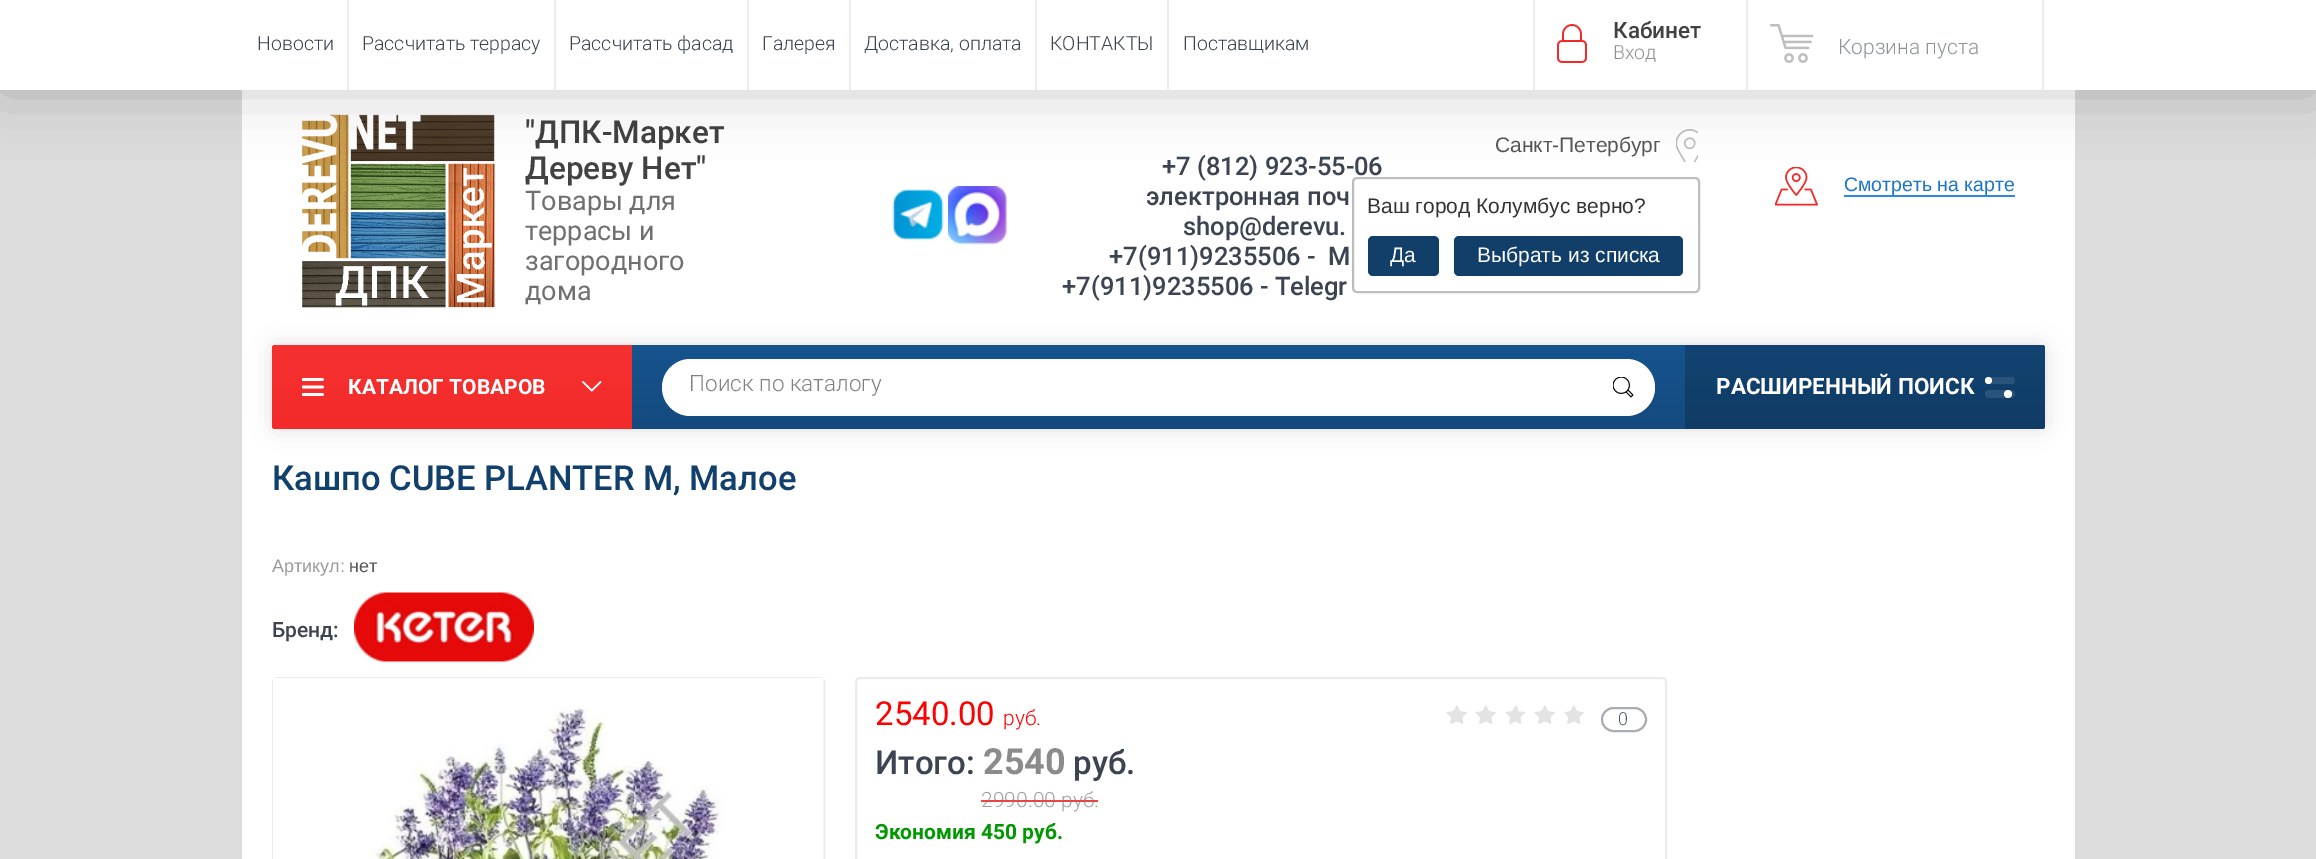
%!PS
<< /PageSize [2316 859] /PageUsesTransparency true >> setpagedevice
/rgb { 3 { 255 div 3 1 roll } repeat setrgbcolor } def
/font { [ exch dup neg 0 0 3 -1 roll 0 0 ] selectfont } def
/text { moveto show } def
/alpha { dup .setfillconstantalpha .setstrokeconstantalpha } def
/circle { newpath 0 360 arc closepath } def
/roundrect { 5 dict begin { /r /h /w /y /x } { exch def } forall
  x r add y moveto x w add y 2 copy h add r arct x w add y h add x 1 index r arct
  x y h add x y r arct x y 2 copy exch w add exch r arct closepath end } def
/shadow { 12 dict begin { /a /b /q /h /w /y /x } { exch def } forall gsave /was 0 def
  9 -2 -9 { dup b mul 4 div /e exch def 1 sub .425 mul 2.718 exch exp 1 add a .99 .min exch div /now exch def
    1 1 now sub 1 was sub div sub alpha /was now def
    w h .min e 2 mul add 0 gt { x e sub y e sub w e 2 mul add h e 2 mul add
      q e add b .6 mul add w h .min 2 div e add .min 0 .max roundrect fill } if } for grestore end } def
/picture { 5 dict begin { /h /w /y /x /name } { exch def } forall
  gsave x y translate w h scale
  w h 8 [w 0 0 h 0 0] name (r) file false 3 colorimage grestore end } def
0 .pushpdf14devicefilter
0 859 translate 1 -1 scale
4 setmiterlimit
220 220 220 rgb
0 0 2316 859 rectfill
255 255 255 rgb
242 90 1833 769 rectfill
(img_03.rgb) 302 114 193 194 picture
(img_04.rgb) 892 189 52 52 picture
(img_05.rgb) 948 186 59 59 picture
(img_06.rgb) 1676 129 22 33 picture
(img_07.rgb) 1775 167 43 39 picture
43 137 228 rgb
1844 195 171 2 rectfill
0 0 0 rgb
272 345 1773 84 6 11 0.13 shadow
gsave 278 345 moveto 1762 0 rlineto 3 0 5 2 5 5 rcurveto 0 74 rlineto 0 3 -2 5 -5 5 rcurveto -1762 0 rlineto -3.5 0 -6 -2.5 -6 -6 rcurveto 0 -72 rlineto 0 -3.5 2.5 -6 6 -6 rcurveto closepath clip newpath
<< /ShadingType 2 /ColorSpace /DeviceRGB /Coords [1158 429 1158 345] /Extend [true true] /Function << /FunctionType 2 /Domain [0 1] /C0 [0.078 0.29 0.494] /C1 [0.086 0.329 0.557] /N 1 >> >> shfill grestore
gsave 277 345 moveto 355 0 rlineto 0 84 rlineto -355 0 rlineto -3 0 -5 -2 -5 -5 rcurveto 0 -74 rlineto 0 -3 2 -5 5 -5 rcurveto closepath clip newpath
<< /ShadingType 2 /ColorSpace /DeviceRGB /Coords [452 429 452 345] /Extend [true true] /Function << /FunctionType 2 /Domain [0 1] /C0 [0.953 0.165 0.165] /C1 [0.961 0.188 0.188] /N 1 >> >> shfill grestore
(img_08.rgb) 302 378 22 18 picture
(img_09.rgb) 582 381 20 11 picture
255 255 255 rgb
662 359 993 57 28.5 roundrect fill
(img_10.rgb) 1613 377 21 21 picture
0.2 alpha
0 0 0 rgb
1685 345 360 84 rectfill
1 alpha
42 84 124 rgb
1985 377 30 7 3.5 roundrect fill
255 255 255 rgb
1988.5 380.5 3.5 circle fill
42 83 122 rgb
1985 390 30 8 4 roundrect fill
255 255 255 rgb
2008 394 4 circle fill
(img_11.rgb) 354 592 180 70 picture
233 235 238 rgb
2 setlinewidth
273 678 551 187 4 roundrect stroke
(img_12.rgb) 273 678 551 181 picture
236 236 236 rgb
856 678 810 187 4 roundrect stroke
(img_13.rgb) 1446 705 139 19 picture
167 173 182 rgb
1602 708 44 23 11.5 roundrect stroke
/Roboto-Medium 31.5 font
66 66 66 rgb
("ДПК-Маркет) 525 143 text
(Дереву Нет") 525 179 text
/Roboto-Regular 27 font
112 112 112 rgb
(Товары для) 525 210 text
(террасы и) 525 240 text
(загородного) 525 270 text
(дома) 525 300 text
/Roboto-Medium 25.5 font
60 68 82 rgb
(+7 \(812\) 923-55-06) 1162 175 text
(электронная поч) 1146 205 text
(shop@derevu.) 1183 235 text
(+7\(911\)9235506 -  M) 1109 265 text
(+7\(911\)9235506 - Telegr) 1062 295 text
/LiberationSans-Regular 21 font
88 88 88 rgb
(Санкт-Петербург) 1495 152 text
190 190 190 rgb
1353 178 346 114 4 roundrect stroke
0 0 0 rgb
0 2 2316 90 0 30 0.2 shadow
255 255 255 rgb
0 0 2316 90 rectfill
/Roboto-Light 19.5 font
142 146 152 rgb
(Вход) 1613 59 text
/Roboto-Medium 22.5 font
66 66 66 rgb
(Кабинет) 1613 38 text
(img_01.rgb) 1557 24 30 39 picture
236 236 236 rgb
1746 0 2 90 rectfill
/Roboto-Light 19.5 font
60 68 82 rgb
(Поставщикам) 1183 50 text
236 236 236 rgb
1167 0 2 90 rectfill
60 68 82 rgb
(КОНТАКТЫ) 1050 50 text
236 236 236 rgb
1035 0 2 90 rectfill
60 68 82 rgb
(Доставка, оплата) 864 50 text
236 236 236 rgb
849 0 2 90 rectfill
60 68 82 rgb
(Галерея) 762 50 text
236 236 236 rgb
747 0 2 90 rectfill
60 68 82 rgb
(Рассчитать фасад) 569 50 text
236 236 236 rgb
554 0 2 90 rectfill
60 68 82 rgb
(Рассчитать террасу) 362 50 text
236 236 236 rgb
347 0 2 90 rectfill
60 68 82 rgb
(Новости) 257 50 text
/Roboto-Light 21 font
142 146 152 rgb
(Корзина пуста) 1838 54 text
(img_02.rgb) 1770 24 44 39 picture
236 236 236 rgb
2042 0 2 90 rectfill
1533 0 2 90 rectfill
/LiberationSans-Regular 21 font
51 51 51 rgb
(Ваш город Колумбус верно?) 1367 213 text
17 63 106 rgb
1368 236 71 40 5 roundrect fill
255 255 255 rgb
(Да) 1390 262 text
17 63 106 rgb
1454 236 229 40 5 roundrect fill
255 255 255 rgb
(Выбрать из списка) 1477 262 text
/LiberationSans-Regular 19.5 font
26 117 204 rgb
(Смотреть на карте) 1844 191 text
/Roboto-Bold 21 font
255 255 255 rgb
(КАТАЛОГ ТОВАРОВ) 348 394 text
/Roboto-Light 22.5 font
129 129 129 rgb
(Поиск по каталогу) 689 391 text
/Roboto-Bold 22.5 font
255 255 255 rgb
(РАСШИРЕННЫЙ ПОИСК) 1716 394 text
/Roboto-Medium 34.5 font
17 64 108 rgb
(Кашпо CUBE PLANTER M, Малое) 272 490 text
/LiberationSans-Regular 18 font
153 153 153 rgb
(Артикул:) 272 572 text
88 88 88 rgb
(нет) 349 572 text
/Roboto-Medium 21 font
60 68 82 rgb
(Бренд:) 272 637 text
/Roboto-Regular 33 font
255 0 0 rgb
(2540.00) 875 725 text
/Roboto-Light 21 font
(руб.) 1003 725 text
/Roboto-Medium 33 font
60 68 82 rgb
(Итого:) 875 774 text
/Roboto-Bold 36 font
140 139 139 rgb
(2540) 983 774 text
/Roboto-Medium 33 font
60 68 82 rgb
(руб.) 1073 774 text
/Roboto-Light 21 font
158 160 164 rgb
(2990.00 руб.) 981 807 text
232 70 70 rgb
981 800 117 2 rectfill
/Roboto-Bold 21 font
0 153 0 rgb
(Экономия 450 руб.) 875 839 text
/Roboto-Light 18 font
76 86 103 rgb
(0) 1618 725 text
.poppdf14devicefilter showpage
